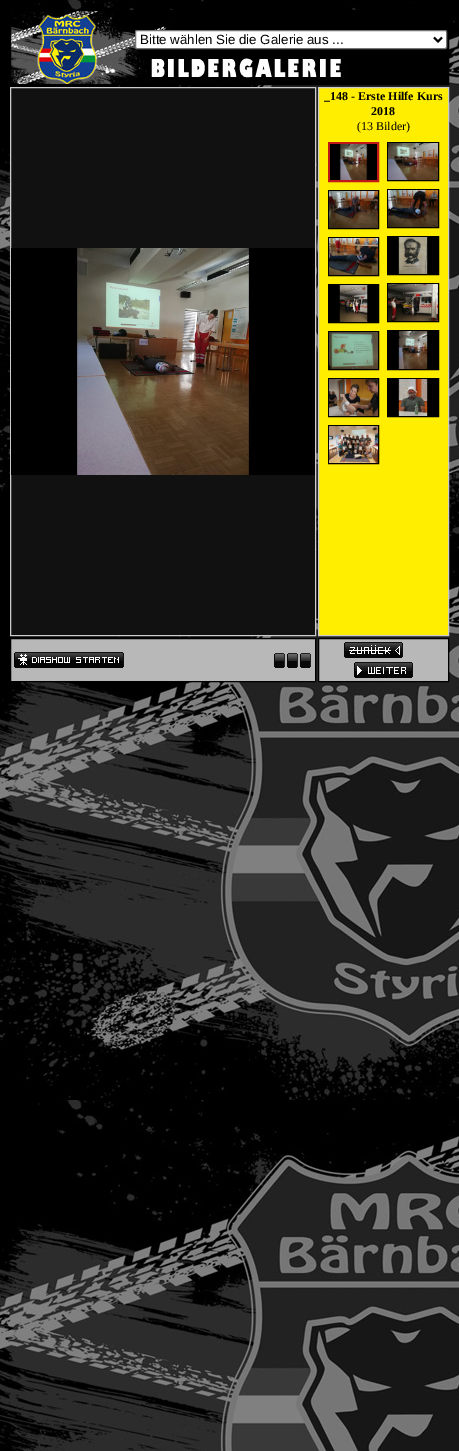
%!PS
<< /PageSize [459 1451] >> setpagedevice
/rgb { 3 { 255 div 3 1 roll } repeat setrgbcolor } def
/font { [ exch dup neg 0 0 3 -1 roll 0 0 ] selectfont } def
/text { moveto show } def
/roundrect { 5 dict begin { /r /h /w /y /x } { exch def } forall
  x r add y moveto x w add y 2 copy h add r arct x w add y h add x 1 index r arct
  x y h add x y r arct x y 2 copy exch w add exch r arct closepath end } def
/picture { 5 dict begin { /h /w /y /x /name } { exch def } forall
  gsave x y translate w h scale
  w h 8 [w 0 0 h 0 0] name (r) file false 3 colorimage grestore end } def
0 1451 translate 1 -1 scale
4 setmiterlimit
255 255 255 rgb
0 0 459 1451 rectfill
(img_01.rgb) 0 0 459 1451 picture
(img_02.rgb) 11 11 437 73 picture
0 0 0 rgb
10.5 10.5 438 74 rectstroke
255 255 255 rgb
135.5 30.5 311 18 1.5 roundrect gsave fill grestore
118 118 118 rgb
stroke
0 0 0 rgb
2 setlinewidth
434 37.5 moveto 4 4 rlineto 4 -4 rlineto stroke
17 17 17 rgb
10.5 87.5 moveto 305 0 rlineto 0 548 rlineto -305 0 rlineto closepath gsave fill grestore
204 204 204 rgb
1 setlinewidth
stroke
(img_03.rgb) 11 248 304 227 picture
255 238 0 rgb
318.5 87.5 moveto 130 0 rlineto 0 548 rlineto -130 0 rlineto closepath gsave fill grestore
204 204 204 rgb
stroke
192 24 24 rgb
2 setlinewidth
329 143 49 38 rectstroke
(img_04.rgb) 330 144 47 36 picture
0 0 0 rgb
1 setlinewidth
328.5 190.5 50 38 rectstroke
(img_05.rgb) 329 191 49 37 picture
328.5 237.5 50 38 rectstroke
(img_06.rgb) 329 238 49 37 picture
328.5 284.5 50 38 rectstroke
(img_07.rgb) 329 285 49 37 picture
328.5 331.5 50 38 rectstroke
(img_08.rgb) 329 332 49 37 picture
328.5 378.5 50 38 rectstroke
(img_09.rgb) 329 379 49 37 picture
328.5 425.5 50 38 rectstroke
(img_10.rgb) 329 426 49 37 picture
387.5 142.5 51 38 rectstroke
(img_11.rgb) 388 143 50 37 picture
387.5 189.5 51 38 rectstroke
(img_12.rgb) 388 190 50 37 picture
387.5 236.5 51 38 rectstroke
(img_13.rgb) 388 237 50 37 picture
387.5 283.5 51 38 rectstroke
(img_14.rgb) 388 284 50 37 picture
387.5 330.5 51 39 rectstroke
(img_15.rgb) 388 331 50 38 picture
387.5 378.5 51 38 rectstroke
(img_16.rgb) 388 379 50 37 picture
184 184 184 rgb
10.5 638.5 moveto 305 0 rlineto 0 43 rlineto -305 0 rlineto closepath gsave fill grestore
0 0 0 rgb
stroke
(img_17.rgb) 14 652 110 16 picture
(img_18.rgb) 274 653 37 15 picture
184 184 184 rgb
318.5 638.5 moveto 130 0 rlineto 0 43 rlineto -130 0 rlineto closepath gsave fill grestore
0 0 0 rgb
stroke
(img_19.rgb) 344 642 59 16 picture
(img_20.rgb) 354 662 59 16 picture
/LiberationSans-Regular 13.3 font
(Bitte wählen Sie die Galerie aus ...) 140 44 text
/LiberationSerif-Bold 12 font
(_148 - Erste Hilfe Kurs) 324 100 text
(2018) 371 115 text
/LiberationSerif-Regular 12 font
(\(13 Bilder\)) 357 130 text
showpage
